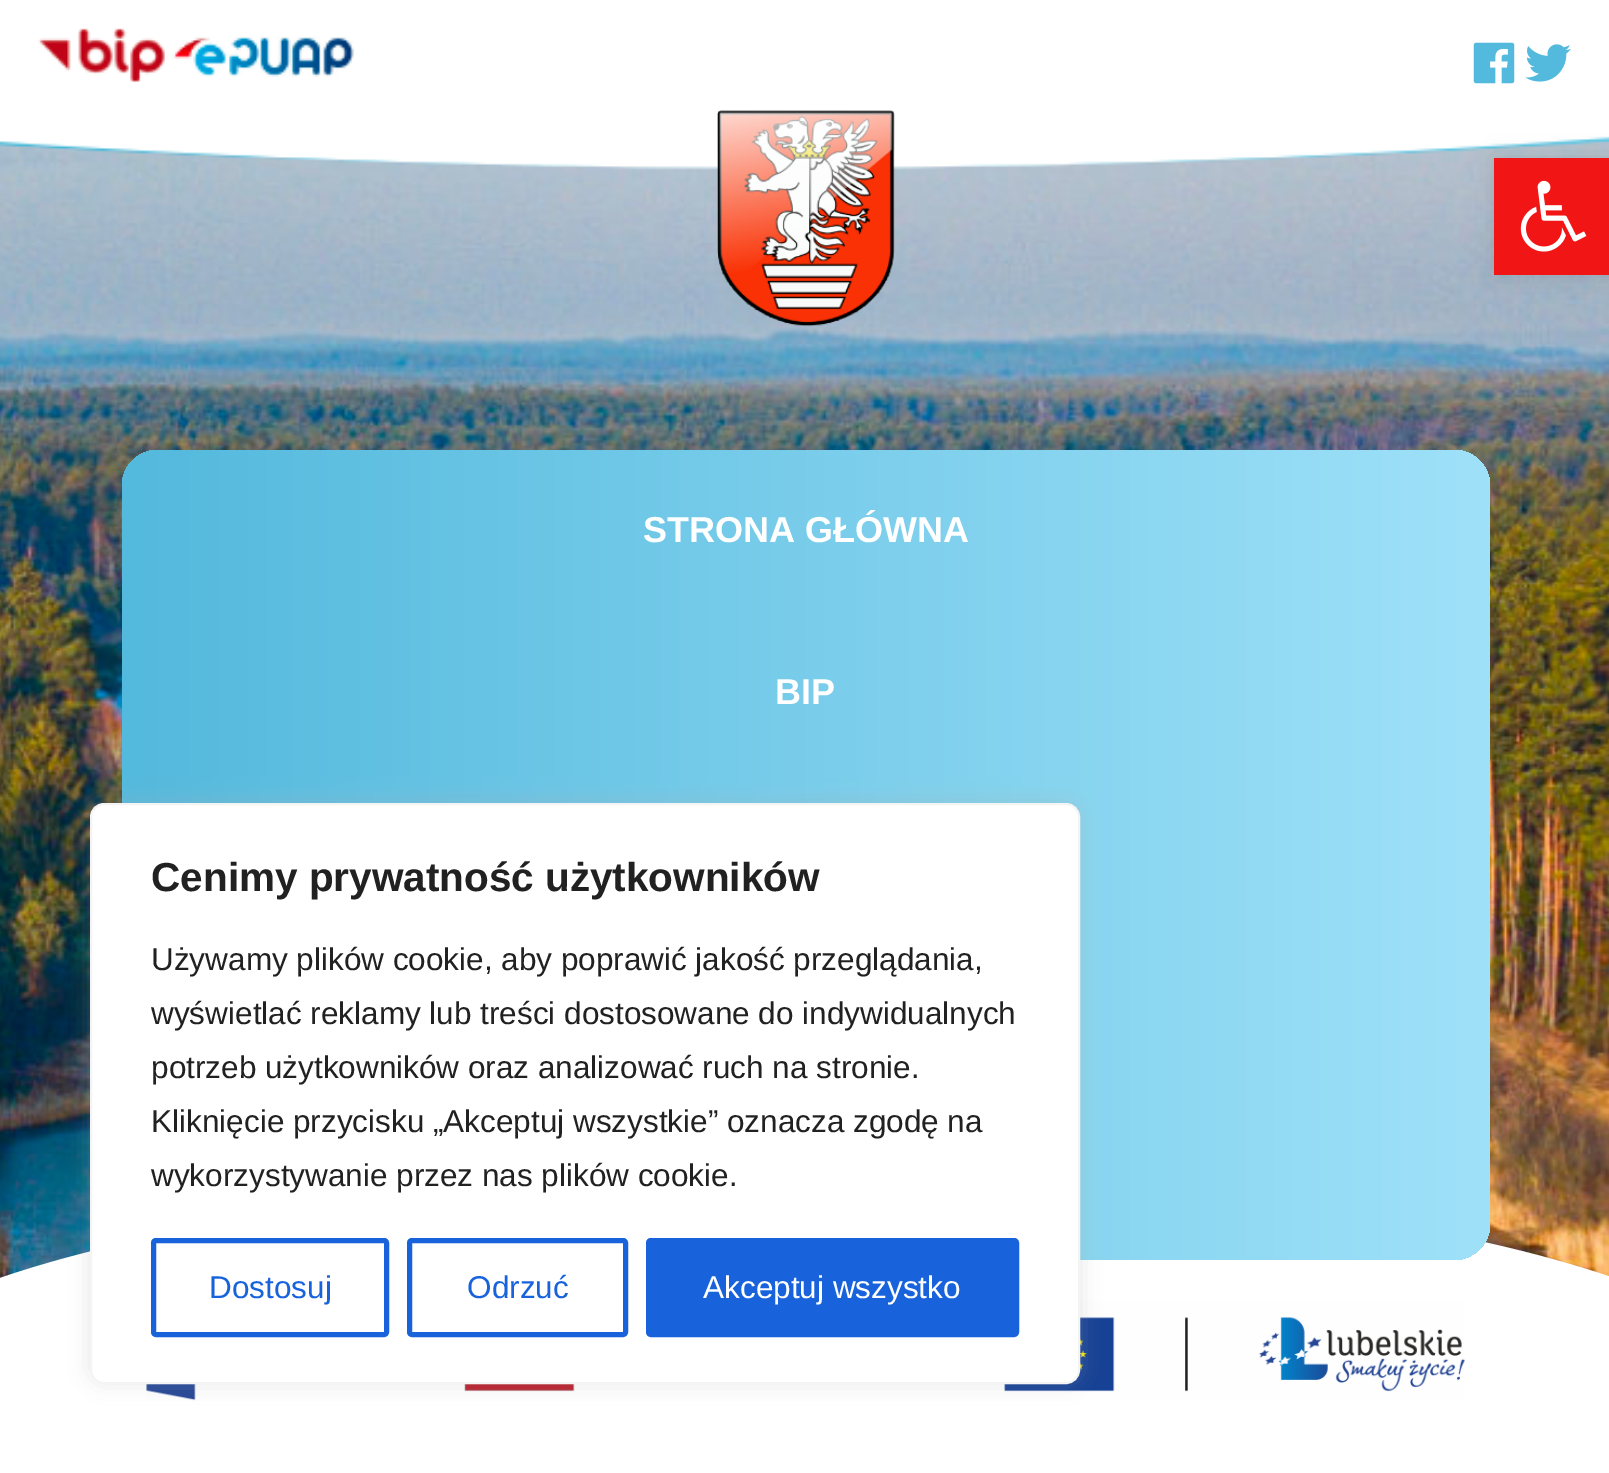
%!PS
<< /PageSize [1609 1473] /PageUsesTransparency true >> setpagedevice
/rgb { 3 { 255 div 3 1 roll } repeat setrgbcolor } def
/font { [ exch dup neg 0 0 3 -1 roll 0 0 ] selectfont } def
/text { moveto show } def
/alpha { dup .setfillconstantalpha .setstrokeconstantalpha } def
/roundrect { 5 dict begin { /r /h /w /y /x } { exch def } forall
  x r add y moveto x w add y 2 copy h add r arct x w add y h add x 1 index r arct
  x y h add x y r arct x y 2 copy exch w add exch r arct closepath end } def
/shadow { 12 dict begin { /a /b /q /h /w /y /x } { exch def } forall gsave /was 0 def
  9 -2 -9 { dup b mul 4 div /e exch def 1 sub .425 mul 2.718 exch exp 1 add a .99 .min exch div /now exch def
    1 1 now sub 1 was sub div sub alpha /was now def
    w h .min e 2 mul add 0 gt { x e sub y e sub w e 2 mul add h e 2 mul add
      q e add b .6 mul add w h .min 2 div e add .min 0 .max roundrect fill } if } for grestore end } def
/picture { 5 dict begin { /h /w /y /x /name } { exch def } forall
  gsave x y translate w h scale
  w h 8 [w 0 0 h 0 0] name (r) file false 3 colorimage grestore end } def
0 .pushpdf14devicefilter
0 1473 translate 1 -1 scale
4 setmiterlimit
255 255 255 rgb
0 0 1609 1473 rectfill
(img_08.rgb) 0 139 1609 1139 picture
(img_01.rgb) 0 0 1609 170 picture
(img_02.rgb) 38 28 127 55 picture
(img_03.rgb) 172 36 182 41 picture
(img_04.rgb) 1473 42 42 42 picture
(img_05.rgb) 1525 44 46 38 picture
(img_06.rgb) 717 110 178 217 picture
0 0 0 rgb
1494 158 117 117 0 11 0.1 shadow
242 21 21 rgb
1494 158 115 117 rectfill
(img_07.rgb) 1520 180 67 72 picture
255 255 255 rgb
0 1278 moveto 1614 0 rlineto -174 -60 -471 -99 -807 -99 rcurveto -336 0 -633 39 -807 99 rcurveto closepath fill
gsave 122 450 1368 810 36 roundrect clip newpath
<< /ShadingType 2 /ColorSpace /DeviceRGB /Coords [122 855 1490 855] /Extend [true true] /Function << /FunctionType 2 /Domain [0 1] /C0 [0.325 0.725 0.867] /C1 [0.624 0.882 0.976] /N 1 >> >> shfill grestore
(img_09.rgb) 146 1302 1319 99 picture
172 171 171 rgb
90 801 990 581 14 11 0.3 shadow
255 255 255 rgb
91 804 988 579 13 roundrect gsave fill grestore
244 244 244 rgb
2 setlinewidth
stroke
24 99 220 rgb
5 setlinewidth
153.5 1240.5 233 94 2.5 roundrect stroke
409.5 1240.5 216 94 2.5 roundrect stroke
648.5 1240.5 368 94 2.5 roundrect gsave fill grestore
stroke
/LiberationSans-Bold 36 font
255 255 255 rgb
(STRONA GŁÓWNA) 643 542 text
(BIP) 775 704 text
/LiberationSans-Bold 40.5 font
33 33 33 rgb
(Cenimy prywatność użytkowników) 151 891 text
/LiberationSans-Regular 31.5 font
(Używamy plików cookie, aby poprawić jakość przeglądania,) 151 970 text
(wyświetlać reklamy lub treści dostosowane do indywidualnych) 151 1024 text
(potrzeb użytkowników oraz analizować ruch na stronie.) 151 1078 text
(Kliknięcie przycisku „Akceptuj wszystkie” oznacza zgodę na) 151 1132 text
(wykorzystywanie przez nas plików cookie.) 151 1186 text
24 99 220 rgb
(Dostosuj) 209 1298 text
(Odrzuć) 467 1298 text
255 255 255 rgb
(Akceptuj wszystko) 703 1298 text
.poppdf14devicefilter showpage
